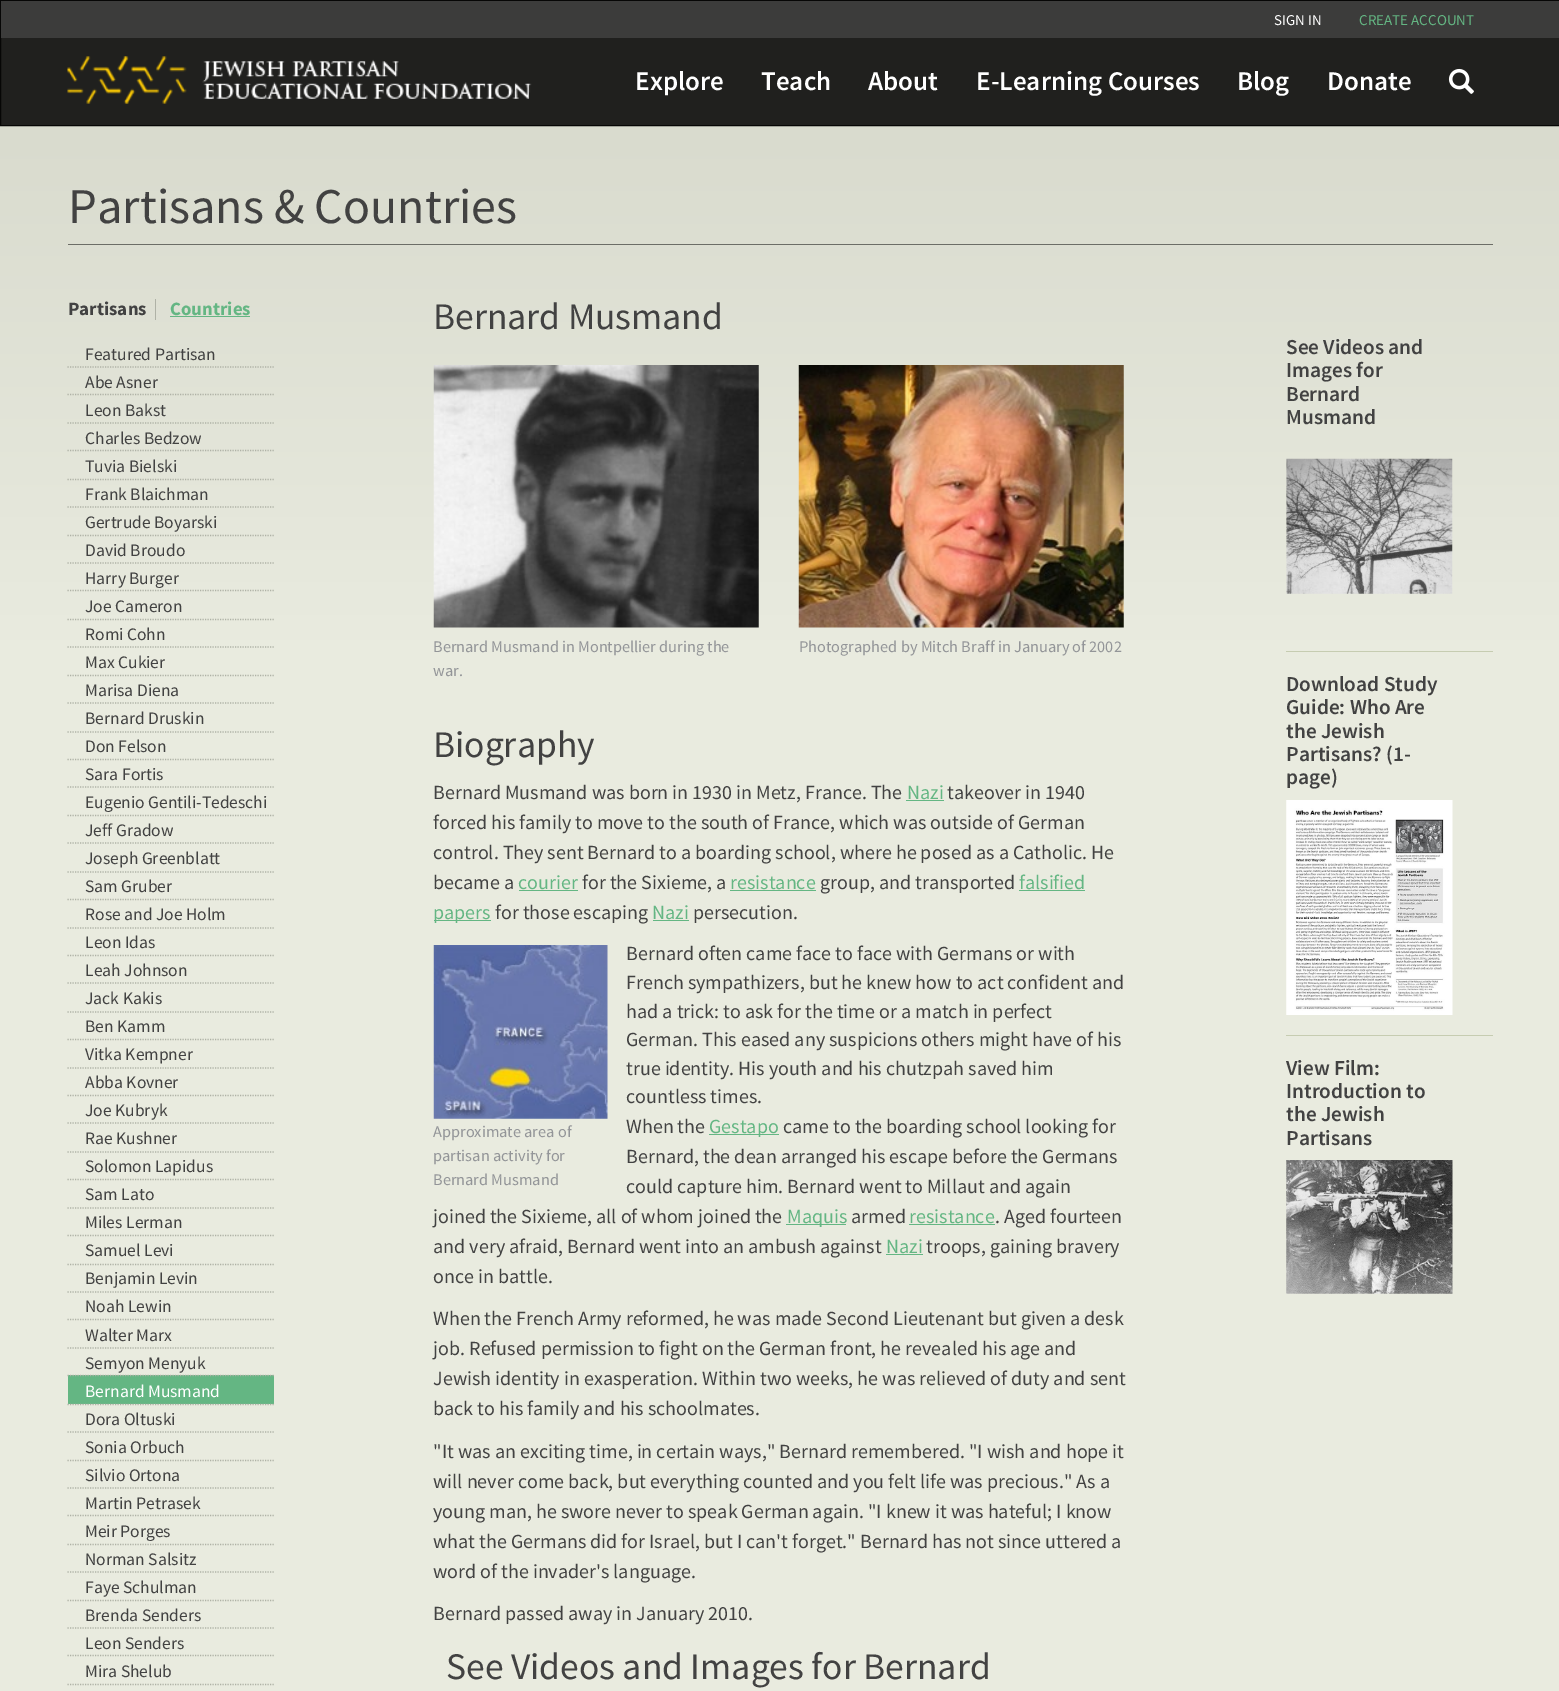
%!PS
<< /PageSize [1559 1691] >> setpagedevice
/rgb { 3 { 255 div 3 1 roll } repeat setrgbcolor } def
/font { [ exch dup neg 0 0 3 -1 roll 0 0 ] selectfont } def
/text { moveto show } def
/picture { 5 dict begin { /h /w /y /x /name } { exch def } forall
  gsave x y translate w h scale
  w h 8 [w 0 0 h 0 0] name (r) file false 3 colorimage grestore end } def
0 1691 translate 1 -1 scale
4 setmiterlimit
255 255 255 rgb
0 0 1559 1691 rectfill
gsave 0 126 moveto 1559 0 rlineto 0 1565 rlineto -1559 0 rlineto closepath clip newpath
<< /ShadingType 2 /ColorSpace /DeviceRGB /Coords [780 0 780 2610] /Extend [true true] /Function << /FunctionType 3 /Domain [0 1] /Functions [<< /FunctionType 2 /Domain [0 1] /C0 [0.835 0.843 0.792] /C1 [0.914 0.922 0.875] /N 1 >> << /FunctionType 2 /Domain [0 1] /C0 [0.914 0.922 0.875] /C1 [0.914 0.922 0.875] /N 1 >>] /Bounds [0.25] /Encode [0 1 0 1] >> >> shfill grestore
32 32 30 rgb
1 38 1558 87 rectfill
6 6 5 rgb
0.5 0.5 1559 125 rectstroke
60 60 59 rgb
1 1 1558 37 rectfill
(img_01.rgb) 67 56 465 48 picture
(img_02.rgb) 1448 68 26 26 picture
108 109 103 rgb
68 244 1425 1 rectfill
175 178 166 rgb
155 299 1 21 rectfill
100 182 131 rgb
170 316 80 1 rectfill
175 178 166 rgb
1.2 setlinewidth
[1.25 1.25] 0 setdash
67.5 367 moveto 206.5 0 rlineto stroke
67.5 394.5 moveto 206.5 0 rlineto stroke
67.5 423 moveto 206.5 0 rlineto stroke
67.5 450.5 moveto 206.5 0 rlineto stroke
67.5 479.5 moveto 206.5 0 rlineto stroke
67.5 507 moveto 206.5 0 rlineto stroke
67.5 535.5 moveto 206.5 0 rlineto stroke
67.5 563 moveto 206.5 0 rlineto stroke
67.5 590.5 moveto 206.5 0 rlineto stroke
67.5 619.5 moveto 206.5 0 rlineto stroke
67.5 647 moveto 206.5 0 rlineto stroke
67.5 675.5 moveto 206.5 0 rlineto stroke
67.5 703 moveto 206.5 0 rlineto stroke
67.5 732 moveto 206.5 0 rlineto stroke
67.5 759.5 moveto 206.5 0 rlineto stroke
67.5 787 moveto 206.5 0 rlineto stroke
67.5 815.5 moveto 206.5 0 rlineto stroke
67.5 843 moveto 206.5 0 rlineto stroke
67.5 872 moveto 206.5 0 rlineto stroke
67.5 899.5 moveto 206.5 0 rlineto stroke
67.5 928 moveto 206.5 0 rlineto stroke
67.5 955.5 moveto 206.5 0 rlineto stroke
67.5 983 moveto 206.5 0 rlineto stroke
67.5 1012 moveto 206.5 0 rlineto stroke
67.5 1039.5 moveto 206.5 0 rlineto stroke
67.5 1068 moveto 206.5 0 rlineto stroke
67.5 1095.5 moveto 206.5 0 rlineto stroke
67.5 1123 moveto 206.5 0 rlineto stroke
67.5 1152 moveto 206.5 0 rlineto stroke
67.5 1179.5 moveto 206.5 0 rlineto stroke
67.5 1208 moveto 206.5 0 rlineto stroke
67.5 1235.5 moveto 206.5 0 rlineto stroke
67.5 1264.5 moveto 206.5 0 rlineto stroke
67.5 1292 moveto 206.5 0 rlineto stroke
67.5 1319.5 moveto 206.5 0 rlineto stroke
67.5 1348 moveto 206.5 0 rlineto stroke
100 182 131 rgb
68 1375 206 29 rectfill
175 178 166 rgb
67.5 1375.5 moveto 206.5 0 rlineto stroke
67.5 1404.5 moveto 206.5 0 rlineto stroke
67.5 1432 moveto 206.5 0 rlineto stroke
67.5 1460.5 moveto 206.5 0 rlineto stroke
67.5 1488 moveto 206.5 0 rlineto stroke
67.5 1515.5 moveto 206.5 0 rlineto stroke
67.5 1544.5 moveto 206.5 0 rlineto stroke
67.5 1572 moveto 206.5 0 rlineto stroke
67.5 1600.5 moveto 206.5 0 rlineto stroke
67.5 1628 moveto 206.5 0 rlineto stroke
67.5 1655.5 moveto 206.5 0 rlineto stroke
67.5 1684.5 moveto 206.5 0 rlineto stroke
(img_03.rgb) 433 365 326 263 picture
(img_04.rgb) 798 365 326 263 picture
100 182 131 rgb
906 800 38 1 rectfill
519 890 59 1 rectfill
730 890 86 1 rectfill
1019 890 66 1 rectfill
434 920 57 1 rectfill
653 920 36 1 rectfill
709 1134 70 1 rectfill
786 1224 60 1 rectfill
909 1224 86 1 rectfill
886 1254 37 1 rectfill
(img_05.rgb) 433 945 175 174 picture
198 204 177 rgb
1286 651 207 1 rectfill
(img_06.rgb) 1286 458 167 136 picture
1286 1035 207 1 rectfill
(img_07.rgb) 1286 800 167 215 picture
(img_08.rgb) 1286 1160 167 134 picture
/SourceSansPro-Regular 15 font
255 255 255 rgb
(SIGN IN) 1274 25 text
100 182 131 rgb
(CREATE ACCOUNT) 1359 25 text
/SourceSansPro-SemiBold 27 font
255 255 255 rgb
(Explore) 635 90 text
(Teach) 761 90 text
(About) 868 90 text
(E-Learning Courses) 976 90 text
(Blog) 1237 90 text
(Donate) 1327 90 text
/SourceSansPro-Regular 50 font
66 66 66 rgb
(Partisans & Countries) 68 223 text
/SourceSansPro-Bold 18.75 font
(Partisans) 68 315 text
100 182 131 rgb
(Countries) 170 315 text
/SourceSansPro-Regular 17.5 font
66 66 66 rgb
(Featured Partisan) 85 360 text
(Abe Asner) 85 388 text
(Leon Bakst) 85 416 text
(Charles Bedzow) 85 444 text
(Tuvia Bielski) 85 472 text
(Frank Blaichman) 85 500 text
(Gertrude Boyarski) 85 528 text
(David Broudo) 85 556 text
(Harry Burger) 85 584 text
(Joe Cameron) 85 612 text
(Romi Cohn) 85 640 text
(Max Cukier) 85 668 text
(Marisa Diena) 85 696 text
(Bernard Druskin) 85 724 text
(Don Felson) 85 752 text
(Sara Fortis) 85 780 text
(Eugenio Gentili-Tedeschi) 85 808 text
(Jeff Gradow) 85 836 text
(Joseph Greenblatt) 85 864 text
(Sam Gruber) 85 892 text
(Rose and Joe Holm) 85 920 text
(Leon Idas) 85 948 text
(Leah Johnson) 85 976 text
(Jack Kakis) 85 1004 text
(Ben Kamm) 85 1032 text
(Vitka Kempner) 85 1060 text
(Abba Kovner) 85 1088 text
(Joe Kubryk) 85 1116 text
(Rae Kushner) 85 1144 text
(Solomon Lapidus) 85 1172 text
(Sam Lato) 85 1200 text
(Miles Lerman) 85 1228 text
(Samuel Levi) 85 1256 text
(Benjamin Levin) 85 1284 text
(Noah Lewin) 85 1312 text
(Walter Marx) 85 1341 text
(Semyon Menyuk) 85 1369 text
255 255 255 rgb
(Bernard Musmand) 85 1397 text
66 66 66 rgb
(Dora Oltuski) 85 1425 text
(Sonia Orbuch) 85 1453 text
(Silvio Ortona) 85 1481 text
(Martin Petrasek) 85 1509 text
(Meir Porges) 85 1537 text
(Norman Salsitz) 85 1565 text
(Faye Schulman) 85 1593 text
(Brenda Senders) 85 1621 text
(Leon Senders) 85 1649 text
(Mira Shelub) 85 1677 text
/SourceSansPro-Regular 37.5 font
(Bernard Musmand) 433 329 text
/SourceSansPro-Regular 16.25 font
147 149 152 rgb
(Bernard Musmand in Montpellier during the) 433 652 text
(war.) 433 676 text
(Photographed by Mitch Braff in January of 2002) 799 652 text
/SourceSansPro-Regular 37.5 font
66 66 66 rgb
(Biography) 433 757 text
/SourceSansPro-Regular 20 font
(Bernard Musmand was born in 1930 in Metz, France. The) 433 799 text
100 182 131 rgb
(Nazi) 907 799 text
66 66 66 rgb
(takeover in 1940) 947 799 text
(forced his family to move to the south of France, which was outside of German) 433 829 text
(control. They sent Bernard to a boarding school, where he posed as a Catholic. He) 433 859 text
(became a) 433 889 text
100 182 131 rgb
(courier) 518 889 text
66 66 66 rgb
(for the Sixieme, a) 582 889 text
100 182 131 rgb
(resistance) 730 889 text
66 66 66 rgb
(group, and transported) 820 889 text
100 182 131 rgb
(falsified) 1019 889 text
(papers) 433 919 text
66 66 66 rgb
(for those escaping) 495 919 text
100 182 131 rgb
(Nazi) 652 919 text
66 66 66 rgb
(persecution.) 693 919 text
(Bernard often came face to face with Germans or with) 626 960 text
(French sympathizers, but he knew how to act confident and) 626 989 text
(had a trick: to ask for the time or a match in perfect) 626 1018 text
(German. This eased any suspicions others might have of his) 626 1046 text
(true identity. His youth and his chutzpah saved him) 626 1075 text
(countless times.) 626 1103 text
(When the) 626 1133 text
100 182 131 rgb
(Gestapo) 709 1133 text
66 66 66 rgb
(came to the boarding school looking for) 783 1133 text
(Bernard, the dean arranged his escape before the Germans) 626 1163 text
(could capture him. Bernard went to Millaut and again) 626 1193 text
(joined the Sixieme, all of whom joined the) 433 1223 text
100 182 131 rgb
(Maquis) 787 1223 text
66 66 66 rgb
(armed) 851 1223 text
100 182 131 rgb
(resistance) 909 1223 text
66 66 66 rgb
(. Aged fourteen) 995 1223 text
(and very afraid, Bernard went into an ambush against) 433 1253 text
100 182 131 rgb
(Nazi) 886 1253 text
66 66 66 rgb
(troops, gaining bravery) 926 1253 text
(once in battle.) 433 1283 text
/SourceSansPro-Regular 16.25 font
147 149 152 rgb
(Approximate area of) 433 1137 text
(partisan activity for) 433 1161 text
(Bernard Musmand) 433 1185 text
/SourceSansPro-Regular 20 font
66 66 66 rgb
(When the French Army reformed, he was made Second Lieutenant but given a desk) 433 1325 text
(job. Refused permission to fight on the German front, he revealed his age and) 433 1355 text
(Jewish identity in exasperation. Within two weeks, he was relieved of duty and sent) 433 1385 text
(back to his family and his schoolmates.) 433 1415 text
("It was an exciting time, in certain ways," Bernard remembered. "I wish and hope it) 433 1458 text
(will never come back, but everything counted and you felt life was precious." As a) 433 1488 text
(young man, he swore never to speak German again. "I knew it was hateful; I know) 433 1518 text
(what the Germans did for Israel, but I can't forget." Bernard has not since uttered a) 433 1548 text
(word of the invader's language.) 433 1578 text
(Bernard passed away in January 2010.) 433 1620 text
/SourceSansPro-Regular 37.5 font
(See Videos and Images for Bernard) 446 1679 text
/SourceSansPro-SemiBold 21.25 font
(See Videos and) 1286 354 text
(Images for) 1286 377 text
(Bernard) 1286 401 text
(Musmand) 1286 424 text
(Download Study) 1286 691 text
(Guide: Who Are) 1286 714 text
(the Jewish) 1286 738 text
(Partisans? \(1-) 1286 761 text
(page\)) 1286 784 text
(View Film:) 1286 1075 text
(Introduction to) 1286 1098 text
(the Jewish) 1286 1121 text
(Partisans) 1286 1145 text
showpage
